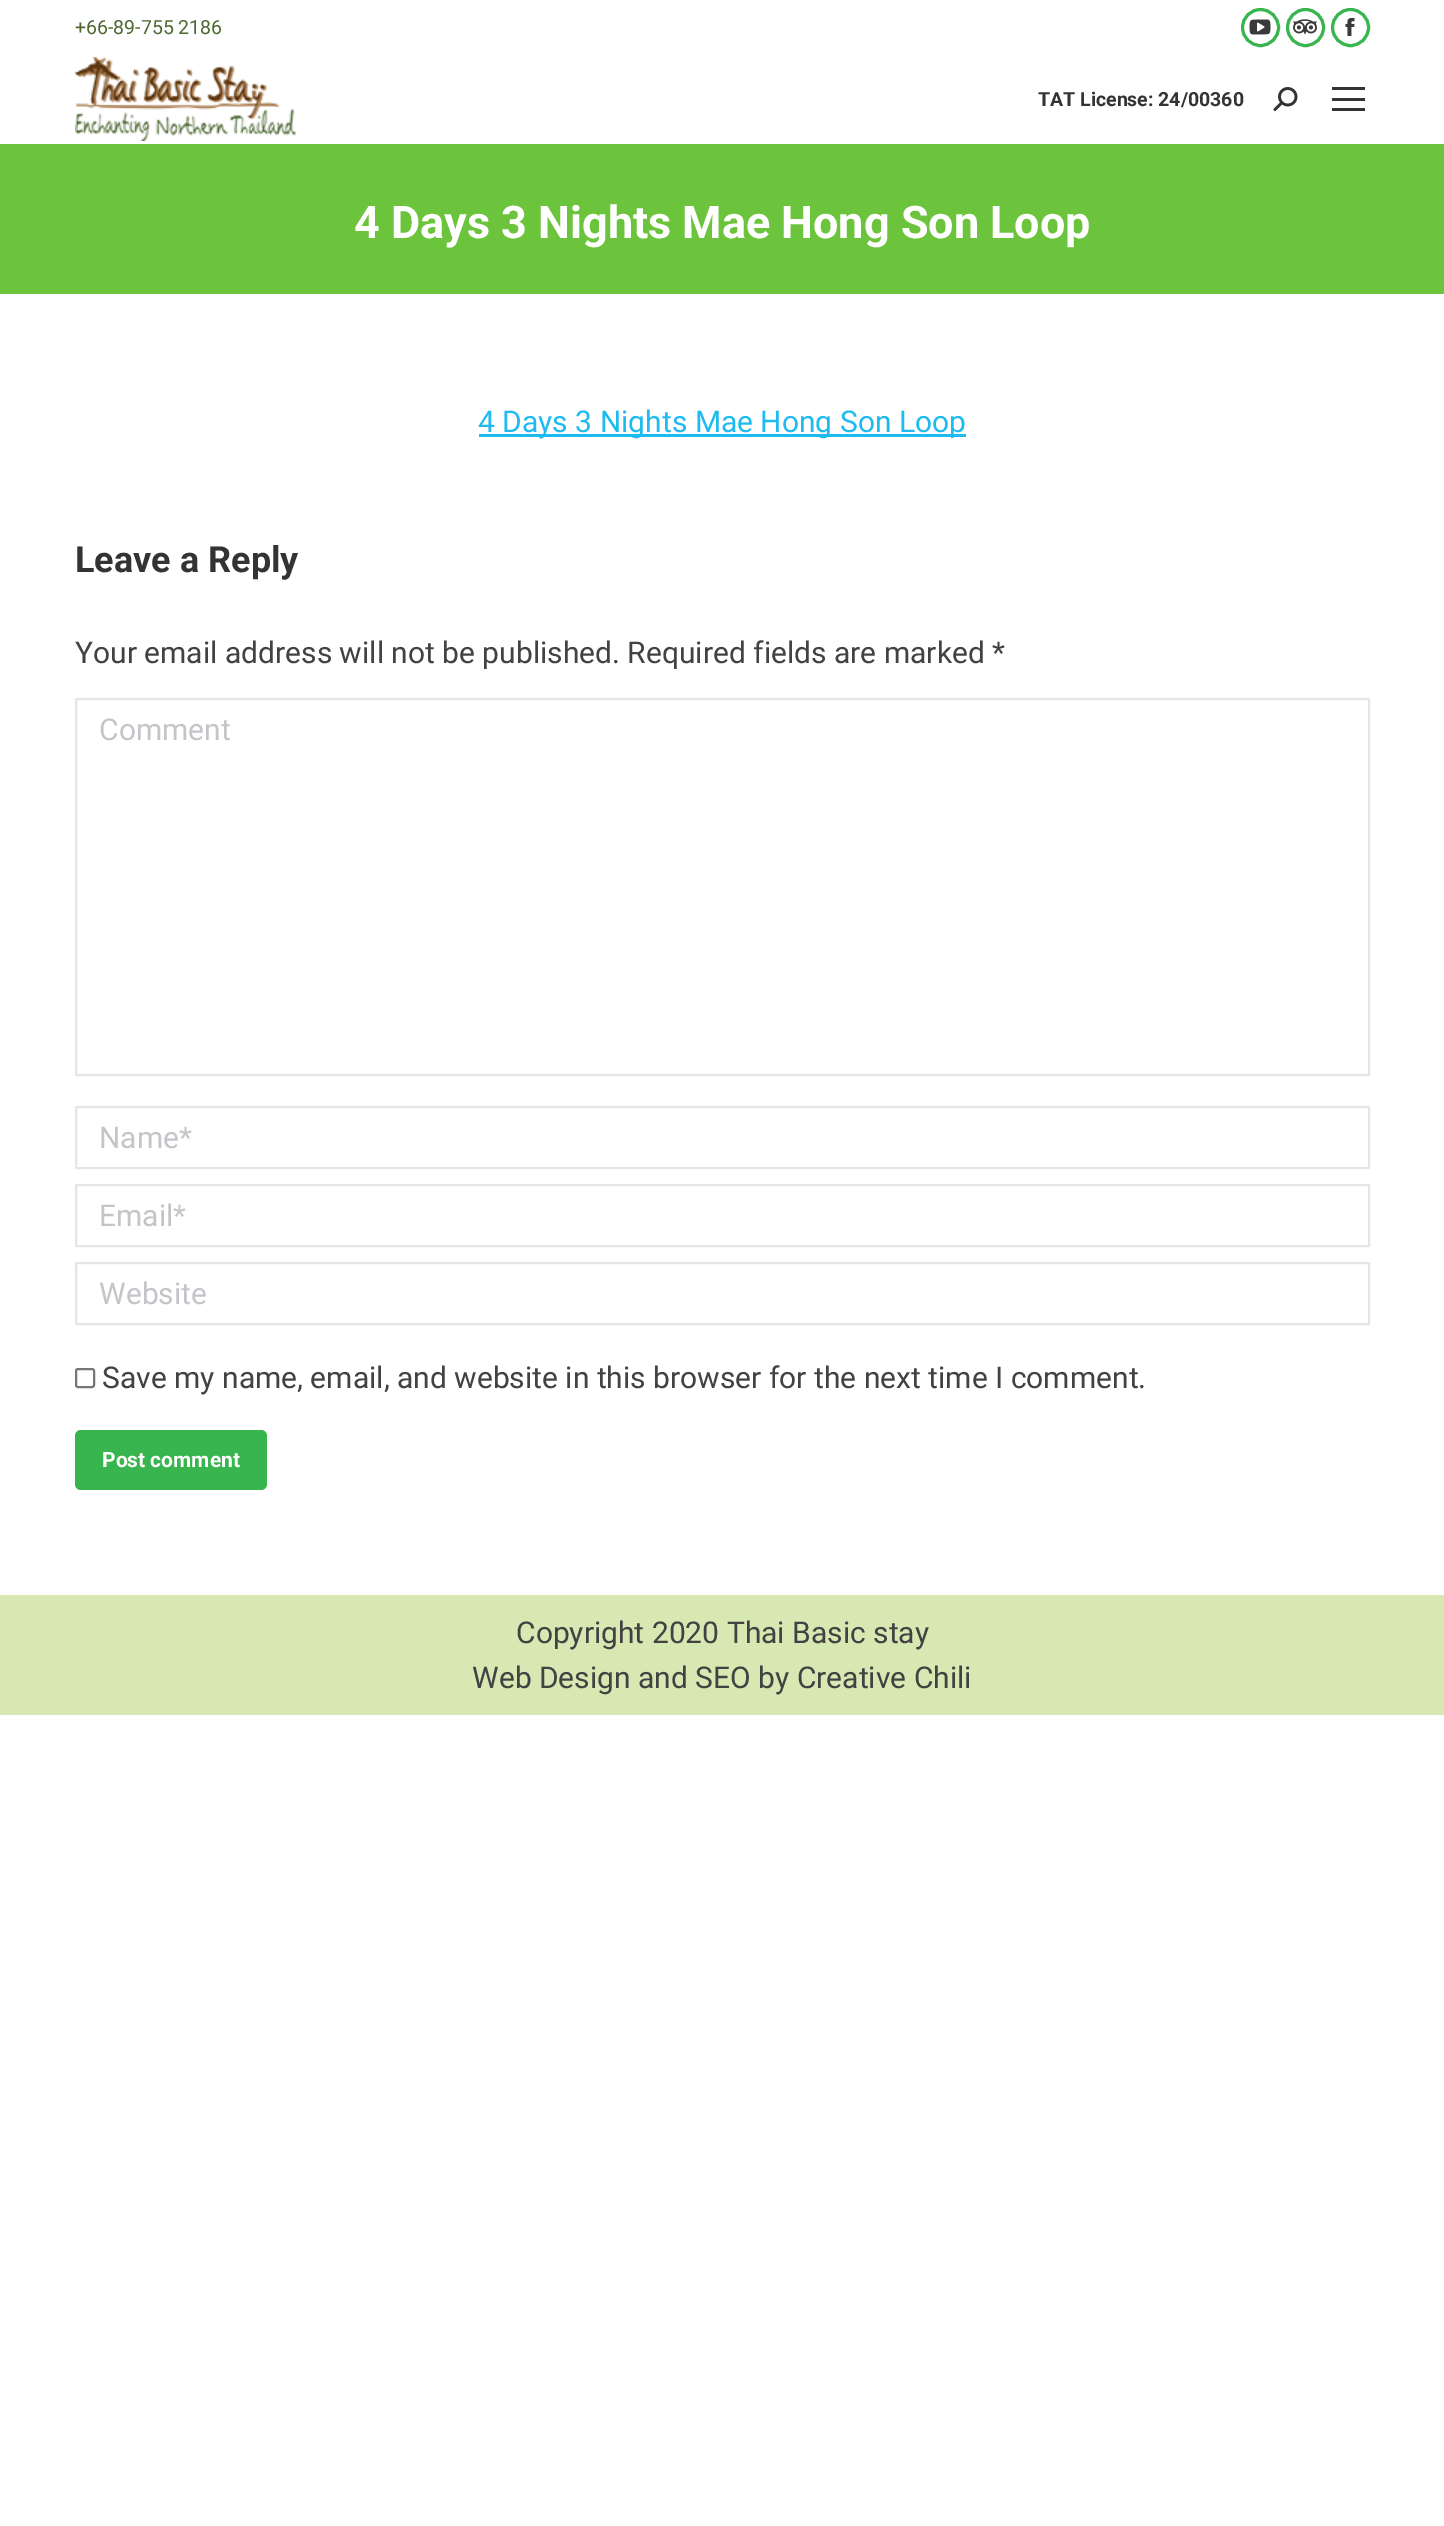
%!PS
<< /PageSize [1444 2526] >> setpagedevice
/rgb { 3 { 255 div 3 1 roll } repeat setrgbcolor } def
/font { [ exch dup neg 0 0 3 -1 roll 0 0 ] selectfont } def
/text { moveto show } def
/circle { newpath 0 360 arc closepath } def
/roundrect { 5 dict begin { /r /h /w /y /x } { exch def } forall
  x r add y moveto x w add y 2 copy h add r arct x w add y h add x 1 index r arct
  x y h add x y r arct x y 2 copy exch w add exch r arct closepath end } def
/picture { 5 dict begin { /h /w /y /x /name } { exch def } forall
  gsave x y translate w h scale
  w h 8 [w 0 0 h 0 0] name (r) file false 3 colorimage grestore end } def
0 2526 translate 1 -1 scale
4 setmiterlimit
255 255 255 rgb
0 0 1444 2526 rectfill
56 181 79 rgb
3 setlinewidth
1260.5 27.5 18 circle stroke
(img_01.rgb) 1249 19 22 16 picture
1305.5 27.5 18 circle stroke
(img_02.rgb) 1293 19 24 16 picture
1350.5 27.5 18 circle stroke
(img_03.rgb) 1345 18 10 18 picture
(img_04.rgb) 75 57 221 84 picture
(img_05.rgb) 1273 87 25 24 picture
51 51 51 rgb
1332 87 33 3 rectfill
1332 98 33 3 rectfill
1332 108 33 3 rectfill
108 196 60 rgb
0 144 1444 150 rectfill
30 187 240 rgb
479 434 487 3 rectfill
229 229 229 rgb
2 setlinewidth
76 699 1293 376 0.5 roundrect stroke
76 1107 1293 61 0.5 roundrect stroke
76 1185 1293 61 0.5 roundrect stroke
76 1263 1293 61 0.5 roundrect stroke
118 118 118 rgb
76 1369 18 18 2 roundrect stroke
56 181 79 rgb
75 1430 192 60 6 roundrect fill
215 232 178 rgb
0 1595 1444 120 rectfill
/Roboto-Regular 19.5 font
77 104 49 rgb
(+66-89-755 2186) 75 34 text
/Roboto-Bold 19.5 font
51 51 51 rgb
(TAT License: 24/00360) 1038 106 text
/Roboto-Bold 45 font
255 255 255 rgb
(4 Days 3 Nights Mae Hong Son Loop) 354 238 text
/Roboto-Regular 30 font
30 187 240 rgb
(4 Days 3 Nights Mae Hong Son Loop) 478 432 text
/Roboto-Bold 36 font
51 51 51 rgb
(Leave a Reply) 75 572 text
/Roboto-Regular 30 font
66 66 66 rgb
(Your email address will not be published. Required fields are marked *) 75 663 text
196 197 201 rgb
(Comment) 99 740 text
(Name*) 99 1148 text
(Email*) 99 1226 text
(Website) 99 1304 text
66 66 66 rgb
(Save my name, email, and website in this browser for the next time I comment.) 102 1388 text
/Roboto-Bold 21 font
255 255 255 rgb
(Post comment) 102 1467 text
/Roboto-Regular 30 font
66 66 66 rgb
(Copyright 2020 Thai Basic stay) 516 1643 text
(Web Design and SEO by Creative Chili) 472 1688 text
showpage
